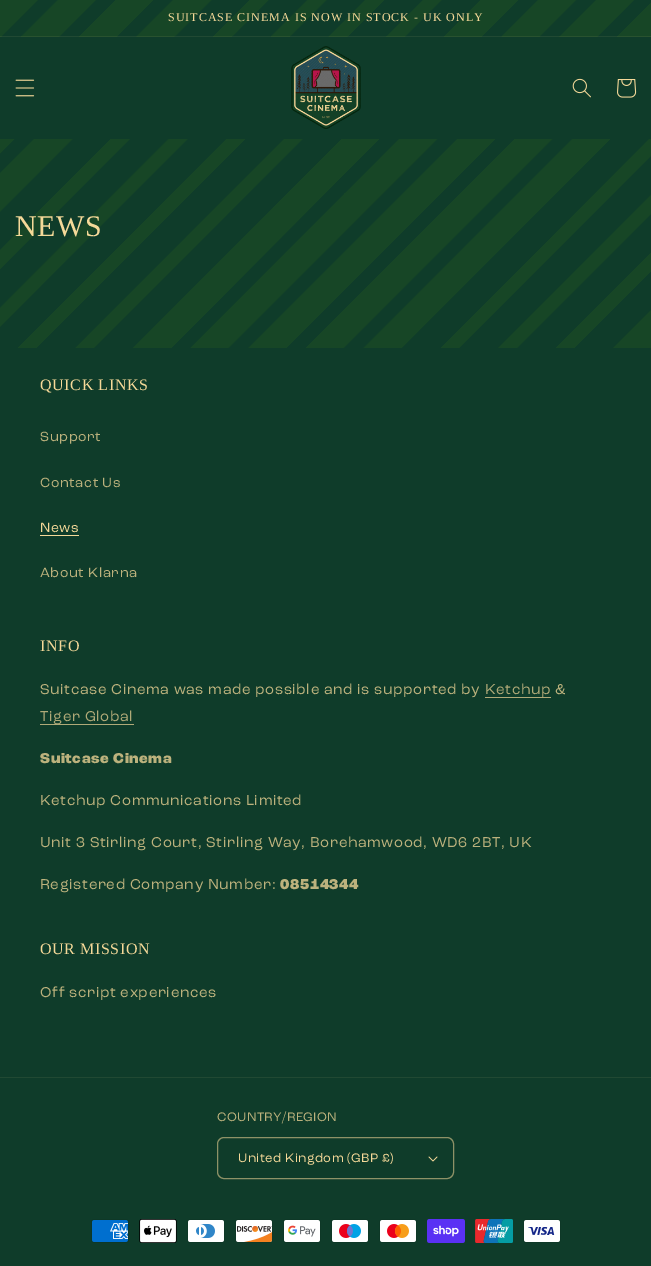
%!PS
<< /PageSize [651 1266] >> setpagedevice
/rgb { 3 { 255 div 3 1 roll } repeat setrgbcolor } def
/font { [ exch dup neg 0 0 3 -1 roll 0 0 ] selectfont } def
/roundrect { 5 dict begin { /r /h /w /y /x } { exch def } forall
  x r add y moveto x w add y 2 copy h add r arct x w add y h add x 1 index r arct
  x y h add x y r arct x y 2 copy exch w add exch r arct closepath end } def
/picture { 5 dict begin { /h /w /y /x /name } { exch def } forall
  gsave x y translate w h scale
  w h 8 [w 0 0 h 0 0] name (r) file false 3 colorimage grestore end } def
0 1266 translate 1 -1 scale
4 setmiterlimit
255 255 255 rgb
0 0 651 1266 rectfill
gsave 0 0 moveto 651 0 rlineto 0 348 rlineto -651 0 rlineto closepath clip newpath
<< /ShadingType 2 /ColorSpace /DeviceRGB /Coords [-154 154 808 1115] /Extend [true true] /Function << /FunctionType 3 /Domain [0 1] /Functions [<< /FunctionType 2 /Domain [0 1] /C0 [0.09 0.275 0.149] /C1 [0.09 0.275 0.149] /N 1 >> << /FunctionType 2 /Domain [0 1] /C0 [0.09 0.275 0.149] /C1 [0.09 0.275 0.149] /N 1 >> << /FunctionType 2 /Domain [0 1] /C0 [0.059 0.235 0.165] /C1 [0.059 0.235 0.165] /N 1 >> << /FunctionType 2 /Domain [0 1] /C0 [0.09 0.275 0.149] /C1 [0.09 0.275 0.149] /N 1 >> << /FunctionType 2 /Domain [0 1] /C0 [0.09 0.275 0.149] /C1 [0.09 0.275 0.149] /N 1 >> << /FunctionType 2 /Domain [0 1] /C0 [0.059 0.235 0.165] /C1 [0.059 0.235 0.165] /N 1 >> << /FunctionType 2 /Domain [0 1] /C0 [0.09 0.275 0.149] /C1 [0.09 0.275 0.149] /N 1 >> << /FunctionType 2 /Domain [0 1] /C0 [0.09 0.275 0.149] /C1 [0.09 0.275 0.149] /N 1 >> << /FunctionType 2 /Domain [0 1] /C0 [0.059 0.235 0.165] /C1 [0.059 0.235 0.165] /N 1 >> << /FunctionType 2 /Domain [0 1] /C0 [0.09 0.275 0.149] /C1 [0.09 0.275 0.149] /N 1 >> << /FunctionType 2 /Domain [0 1] /C0 [0.09 0.275 0.149] /C1 [0.09 0.275 0.149] /N 1 >> << /FunctionType 2 /Domain [0 1] /C0 [0.059 0.235 0.165] /C1 [0.059 0.235 0.165] /N 1 >> << /FunctionType 2 /Domain [0 1] /C0 [0.059 0.235 0.165] /C1 [0.059 0.235 0.165] /N 1 >> << /FunctionType 2 /Domain [0 1] /C0 [0.09 0.275 0.149] /C1 [0.09 0.275 0.149] /N 1 >> << /FunctionType 2 /Domain [0 1] /C0 [0.059 0.235 0.165] /C1 [0.059 0.235 0.165] /N 1 >> << /FunctionType 2 /Domain [0 1] /C0 [0.059 0.235 0.165] /C1 [0.059 0.235 0.165] /N 1 >> << /FunctionType 2 /Domain [0 1] /C0 [0.09 0.275 0.149] /C1 [0.09 0.275 0.149] /N 1 >> << /FunctionType 2 /Domain [0 1] /C0 [0.059 0.235 0.165] /C1 [0.059 0.235 0.165] /N 1 >> << /FunctionType 2 /Domain [0 1] /C0 [0.059 0.235 0.165] /C1 [0.059 0.235 0.165] /N 1 >> << /FunctionType 2 /Domain [0 1] /C0 [0.09 0.275 0.149] /C1 [0.09 0.275 0.149] /N 1 >> << /FunctionType 2 /Domain [0 1] /C0 [0.059 0.235 0.165] /C1 [0.059 0.235 0.165] /N 1 >> << /FunctionType 2 /Domain [0 1] /C0 [0.059 0.235 0.165] /C1 [0.059 0.235 0.165] /N 1 >> << /FunctionType 2 /Domain [0 1] /C0 [0.09 0.275 0.149] /C1 [0.09 0.275 0.149] /N 1 >> << /FunctionType 2 /Domain [0 1] /C0 [0.059 0.235 0.165] /C1 [0.059 0.235 0.165] /N 1 >> << /FunctionType 2 /Domain [0 1] /C0 [0.059 0.235 0.165] /C1 [0.059 0.235 0.165] /N 1 >> << /FunctionType 2 /Domain [0 1] /C0 [0.09 0.275 0.149] /C1 [0.09 0.275 0.149] /N 1 >> << /FunctionType 2 /Domain [0 1] /C0 [0.09 0.275 0.149] /C1 [0.09 0.275 0.149] /N 1 >> << /FunctionType 2 /Domain [0 1] /C0 [0.059 0.235 0.165] /C1 [0.059 0.235 0.165] /N 1 >> << /FunctionType 2 /Domain [0 1] /C0 [0.09 0.275 0.149] /C1 [0.09 0.275 0.149] /N 1 >> << /FunctionType 2 /Domain [0 1] /C0 [0.09 0.275 0.149] /C1 [0.09 0.275 0.149] /N 1 >> << /FunctionType 2 /Domain [0 1] /C0 [0.059 0.235 0.165] /C1 [0.059 0.235 0.165] /N 1 >> << /FunctionType 2 /Domain [0 1] /C0 [0.09 0.275 0.149] /C1 [0.09 0.275 0.149] /N 1 >> << /FunctionType 2 /Domain [0 1] /C0 [0.09 0.275 0.149] /C1 [0.09 0.275 0.149] /N 1 >> << /FunctionType 2 /Domain [0 1] /C0 [0.059 0.235 0.165] /C1 [0.059 0.235 0.165] /N 1 >> << /FunctionType 2 /Domain [0 1] /C0 [0.09 0.275 0.149] /C1 [0.09 0.275 0.149] /N 1 >> << /FunctionType 2 /Domain [0 1] /C0 [0.09 0.275 0.149] /C1 [0.09 0.275 0.149] /N 1 >> << /FunctionType 2 /Domain [0 1] /C0 [0.059 0.235 0.165] /C1 [0.059 0.235 0.165] /N 1 >> << /FunctionType 2 /Domain [0 1] /C0 [0.09 0.275 0.149] /C1 [0.09 0.275 0.149] /N 1 >> << /FunctionType 2 /Domain [0 1] /C0 [0.09 0.275 0.149] /C1 [0.09 0.275 0.149] /N 1 >> << /FunctionType 2 /Domain [0 1] /C0 [0.059 0.235 0.165] /C1 [0.059 0.235 0.165] /N 1 >> << /FunctionType 2 /Domain [0 1] /C0 [0.059 0.235 0.165] /C1 [0.059 0.235 0.165] /N 1 >> << /FunctionType 2 /Domain [0 1] /C0 [0.09 0.275 0.149] /C1 [0.09 0.275 0.149] /N 1 >> << /FunctionType 2 /Domain [0 1] /C0 [0.059 0.235 0.165] /C1 [0.059 0.235 0.165] /N 1 >> << /FunctionType 2 /Domain [0 1] /C0 [0.059 0.235 0.165] /C1 [0.059 0.235 0.165] /N 1 >> << /FunctionType 2 /Domain [0 1] /C0 [0.09 0.275 0.149] /C1 [0.09 0.275 0.149] /N 1 >> << /FunctionType 2 /Domain [0 1] /C0 [0.059 0.235 0.165] /C1 [0.059 0.235 0.165] /N 1 >> << /FunctionType 2 /Domain [0 1] /C0 [0.059 0.235 0.165] /C1 [0.059 0.235 0.165] /N 1 >> << /FunctionType 2 /Domain [0 1] /C0 [0.09 0.275 0.149] /C1 [0.09 0.275 0.149] /N 1 >> << /FunctionType 2 /Domain [0 1] /C0 [0.059 0.235 0.165] /C1 [0.059 0.235 0.165] /N 1 >> << /FunctionType 2 /Domain [0 1] /C0 [0.059 0.235 0.165] /C1 [0.059 0.235 0.165] /N 1 >> << /FunctionType 2 /Domain [0 1] /C0 [0.09 0.275 0.149] /C1 [0.09 0.275 0.149] /N 1 >> << /FunctionType 2 /Domain [0 1] /C0 [0.09 0.275 0.149] /C1 [0.09 0.275 0.149] /N 1 >> << /FunctionType 2 /Domain [0 1] /C0 [0.059 0.235 0.165] /C1 [0.059 0.235 0.165] /N 1 >> << /FunctionType 2 /Domain [0 1] /C0 [0.09 0.275 0.149] /C1 [0.09 0.275 0.149] /N 1 >> << /FunctionType 2 /Domain [0 1] /C0 [0.09 0.275 0.149] /C1 [0.09 0.275 0.149] /N 1 >> << /FunctionType 2 /Domain [0 1] /C0 [0.059 0.235 0.165] /C1 [0.059 0.235 0.165] /N 1 >> << /FunctionType 2 /Domain [0 1] /C0 [0.09 0.275 0.149] /C1 [0.09 0.275 0.149] /N 1 >> << /FunctionType 2 /Domain [0 1] /C0 [0.09 0.275 0.149] /C1 [0.09 0.275 0.149] /N 1 >> << /FunctionType 2 /Domain [0 1] /C0 [0.059 0.235 0.165] /C1 [0.059 0.235 0.165] /N 1 >> << /FunctionType 2 /Domain [0 1] /C0 [0.09 0.275 0.149] /C1 [0.09 0.275 0.149] /N 1 >> << /FunctionType 2 /Domain [0 1] /C0 [0.09 0.275 0.149] /C1 [0.09 0.275 0.149] /N 1 >> << /FunctionType 2 /Domain [0 1] /C0 [0.059 0.235 0.165] /C1 [0.059 0.235 0.165] /N 1 >> << /FunctionType 2 /Domain [0 1] /C0 [0.059 0.235 0.165] /C1 [0.059 0.235 0.165] /N 1 >> << /FunctionType 2 /Domain [0 1] /C0 [0.09 0.275 0.149] /C1 [0.09 0.275 0.149] /N 1 >> << /FunctionType 2 /Domain [0 1] /C0 [0.059 0.235 0.165] /C1 [0.059 0.235 0.165] /N 1 >> << /FunctionType 2 /Domain [0 1] /C0 [0.059 0.235 0.165] /C1 [0.059 0.235 0.165] /N 1 >> << /FunctionType 2 /Domain [0 1] /C0 [0.09 0.275 0.149] /C1 [0.09 0.275 0.149] /N 1 >> << /FunctionType 2 /Domain [0 1] /C0 [0.059 0.235 0.165] /C1 [0.059 0.235 0.165] /N 1 >> << /FunctionType 2 /Domain [0 1] /C0 [0.059 0.235 0.165] /C1 [0.059 0.235 0.165] /N 1 >> << /FunctionType 2 /Domain [0 1] /C0 [0.09 0.275 0.149] /C1 [0.09 0.275 0.149] /N 1 >> << /FunctionType 2 /Domain [0 1] /C0 [0.059 0.235 0.165] /C1 [0.059 0.235 0.165] /N 1 >> << /FunctionType 2 /Domain [0 1] /C0 [0.059 0.235 0.165] /C1 [0.059 0.235 0.165] /N 1 >> << /FunctionType 2 /Domain [0 1] /C0 [0.09 0.275 0.149] /C1 [0.09 0.275 0.149] /N 1 >> << /FunctionType 2 /Domain [0 1] /C0 [0.059 0.235 0.165] /C1 [0.059 0.235 0.165] /N 1 >> << /FunctionType 2 /Domain [0 1] /C0 [0.059 0.235 0.165] /C1 [0.059 0.235 0.165] /N 1 >> << /FunctionType 2 /Domain [0 1] /C0 [0.09 0.275 0.149] /C1 [0.09 0.275 0.149] /N 1 >> << /FunctionType 2 /Domain [0 1] /C0 [0.09 0.275 0.149] /C1 [0.09 0.275 0.149] /N 1 >> << /FunctionType 2 /Domain [0 1] /C0 [0.059 0.235 0.165] /C1 [0.059 0.235 0.165] /N 1 >> << /FunctionType 2 /Domain [0 1] /C0 [0.09 0.275 0.149] /C1 [0.09 0.275 0.149] /N 1 >> << /FunctionType 2 /Domain [0 1] /C0 [0.09 0.275 0.149] /C1 [0.09 0.275 0.149] /N 1 >> << /FunctionType 2 /Domain [0 1] /C0 [0.059 0.235 0.165] /C1 [0.059 0.235 0.165] /N 1 >> << /FunctionType 2 /Domain [0 1] /C0 [0.09 0.275 0.149] /C1 [0.09 0.275 0.149] /N 1 >> << /FunctionType 2 /Domain [0 1] /C0 [0.09 0.275 0.149] /C1 [0.09 0.275 0.149] /N 1 >> << /FunctionType 2 /Domain [0 1] /C0 [0.059 0.235 0.165] /C1 [0.059 0.235 0.165] /N 1 >> << /FunctionType 2 /Domain [0 1] /C0 [0.09 0.275 0.149] /C1 [0.09 0.275 0.149] /N 1 >> << /FunctionType 2 /Domain [0 1] /C0 [0.09 0.275 0.149] /C1 [0.09 0.275 0.149] /N 1 >> << /FunctionType 2 /Domain [0 1] /C0 [0.059 0.235 0.165] /C1 [0.059 0.235 0.165] /N 1 >> << /FunctionType 2 /Domain [0 1] /C0 [0.059 0.235 0.165] /C1 [0.059 0.235 0.165] /N 1 >> << /FunctionType 2 /Domain [0 1] /C0 [0.09 0.275 0.149] /C1 [0.09 0.275 0.149] /N 1 >> << /FunctionType 2 /Domain [0 1] /C0 [0.059 0.235 0.165] /C1 [0.059 0.235 0.165] /N 1 >> << /FunctionType 2 /Domain [0 1] /C0 [0.059 0.235 0.165] /C1 [0.059 0.235 0.165] /N 1 >> << /FunctionType 2 /Domain [0 1] /C0 [0.09 0.275 0.149] /C1 [0.09 0.275 0.149] /N 1 >> << /FunctionType 2 /Domain [0 1] /C0 [0.059 0.235 0.165] /C1 [0.059 0.235 0.165] /N 1 >> << /FunctionType 2 /Domain [0 1] /C0 [0.059 0.235 0.165] /C1 [0.059 0.235 0.165] /N 1 >> << /FunctionType 2 /Domain [0 1] /C0 [0.09 0.275 0.149] /C1 [0.09 0.275 0.149] /N 1 >> << /FunctionType 2 /Domain [0 1] /C0 [0.059 0.235 0.165] /C1 [0.059 0.235 0.165] /N 1 >> << /FunctionType 2 /Domain [0 1] /C0 [0.059 0.235 0.165] /C1 [0.059 0.235 0.165] /N 1 >> << /FunctionType 2 /Domain [0 1] /C0 [0.09 0.275 0.149] /C1 [0.09 0.275 0.149] /N 1 >> << /FunctionType 2 /Domain [0 1] /C0 [0.059 0.235 0.165] /C1 [0.059 0.235 0.165] /N 1 >> << /FunctionType 2 /Domain [0 1] /C0 [0.059 0.235 0.165] /C1 [0.059 0.235 0.165] /N 1 >>] /Bounds [0.01 0.02 0.03 0.04 0.05 0.06 0.07 0.08 0.09 0.1 0.11 0.12 0.13 0.14 0.15 0.16 0.17 0.18 0.19 0.2 0.21 0.22 0.23 0.24 0.25 0.26 0.27 0.28 0.29 0.3 0.31 0.32 0.33 0.34 0.35 0.36 0.37 0.38 0.39 0.4 0.41 0.42 0.43 0.44 0.45 0.46 0.47 0.48 0.49 0.5 0.51 0.52 0.53 0.54 0.55 0.56 0.57 0.58 0.59 0.6 0.61 0.62 0.63 0.64 0.65 0.66 0.67 0.68 0.69 0.7 0.71 0.72 0.73 0.74 0.75 0.76 0.77 0.78 0.79 0.8 0.81 0.82 0.83 0.84 0.85 0.86 0.87 0.88 0.89 0.9 0.91 0.92 0.93 0.94 0.95 0.96 0.97 0.98 0.99] /Encode [0 1 0 1 0 1 0 1 0 1 0 1 0 1 0 1 0 1 0 1 0 1 0 1 0 1 0 1 0 1 0 1 0 1 0 1 0 1 0 1 0 1 0 1 0 1 0 1 0 1 0 1 0 1 0 1 0 1 0 1 0 1 0 1 0 1 0 1 0 1 0 1 0 1 0 1 0 1 0 1 0 1 0 1 0 1 0 1 0 1 0 1 0 1 0 1 0 1 0 1 0 1 0 1 0 1 0 1 0 1 0 1 0 1 0 1 0 1 0 1 0 1 0 1 0 1 0 1 0 1 0 1 0 1 0 1 0 1 0 1 0 1 0 1 0 1 0 1 0 1 0 1 0 1 0 1 0 1 0 1 0 1 0 1 0 1 0 1 0 1 0 1 0 1 0 1 0 1 0 1 0 1 0 1 0 1 0 1 0 1 0 1 0 1 0 1 0 1 0 1] >> >> shfill grestore
gsave 0 36 moveto 651 0 rlineto 0 1 rlineto -651 0 rlineto closepath clip newpath
<< /ShadingType 2 /ColorSpace /DeviceRGB /Coords [-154 154 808 1115] /Extend [true true] /Function << /FunctionType 3 /Domain [0 1] /Functions [<< /FunctionType 2 /Domain [0 1] /C0 [0.161 0.322 0.184] /C1 [0.161 0.322 0.184] /N 1 >> << /FunctionType 2 /Domain [0 1] /C0 [0.161 0.322 0.184] /C1 [0.161 0.322 0.184] /N 1 >> << /FunctionType 2 /Domain [0 1] /C0 [0.129 0.286 0.2] /C1 [0.129 0.286 0.2] /N 1 >> << /FunctionType 2 /Domain [0 1] /C0 [0.161 0.322 0.184] /C1 [0.161 0.322 0.184] /N 1 >> << /FunctionType 2 /Domain [0 1] /C0 [0.161 0.322 0.184] /C1 [0.161 0.322 0.184] /N 1 >> << /FunctionType 2 /Domain [0 1] /C0 [0.129 0.286 0.2] /C1 [0.129 0.286 0.2] /N 1 >> << /FunctionType 2 /Domain [0 1] /C0 [0.161 0.322 0.184] /C1 [0.161 0.322 0.184] /N 1 >> << /FunctionType 2 /Domain [0 1] /C0 [0.161 0.322 0.184] /C1 [0.161 0.322 0.184] /N 1 >> << /FunctionType 2 /Domain [0 1] /C0 [0.129 0.286 0.2] /C1 [0.129 0.286 0.2] /N 1 >> << /FunctionType 2 /Domain [0 1] /C0 [0.161 0.322 0.184] /C1 [0.161 0.322 0.184] /N 1 >> << /FunctionType 2 /Domain [0 1] /C0 [0.161 0.322 0.184] /C1 [0.161 0.322 0.184] /N 1 >> << /FunctionType 2 /Domain [0 1] /C0 [0.129 0.286 0.2] /C1 [0.129 0.286 0.2] /N 1 >> << /FunctionType 2 /Domain [0 1] /C0 [0.129 0.286 0.2] /C1 [0.129 0.286 0.2] /N 1 >> << /FunctionType 2 /Domain [0 1] /C0 [0.161 0.322 0.184] /C1 [0.161 0.322 0.184] /N 1 >> << /FunctionType 2 /Domain [0 1] /C0 [0.129 0.286 0.2] /C1 [0.129 0.286 0.2] /N 1 >> << /FunctionType 2 /Domain [0 1] /C0 [0.129 0.286 0.2] /C1 [0.129 0.286 0.2] /N 1 >> << /FunctionType 2 /Domain [0 1] /C0 [0.161 0.322 0.184] /C1 [0.161 0.322 0.184] /N 1 >> << /FunctionType 2 /Domain [0 1] /C0 [0.129 0.286 0.2] /C1 [0.129 0.286 0.2] /N 1 >> << /FunctionType 2 /Domain [0 1] /C0 [0.129 0.286 0.2] /C1 [0.129 0.286 0.2] /N 1 >> << /FunctionType 2 /Domain [0 1] /C0 [0.161 0.322 0.184] /C1 [0.161 0.322 0.184] /N 1 >> << /FunctionType 2 /Domain [0 1] /C0 [0.129 0.286 0.2] /C1 [0.129 0.286 0.2] /N 1 >> << /FunctionType 2 /Domain [0 1] /C0 [0.129 0.286 0.2] /C1 [0.129 0.286 0.2] /N 1 >> << /FunctionType 2 /Domain [0 1] /C0 [0.161 0.322 0.184] /C1 [0.161 0.322 0.184] /N 1 >> << /FunctionType 2 /Domain [0 1] /C0 [0.129 0.286 0.2] /C1 [0.129 0.286 0.2] /N 1 >> << /FunctionType 2 /Domain [0 1] /C0 [0.129 0.286 0.2] /C1 [0.129 0.286 0.2] /N 1 >> << /FunctionType 2 /Domain [0 1] /C0 [0.161 0.322 0.184] /C1 [0.161 0.322 0.184] /N 1 >> << /FunctionType 2 /Domain [0 1] /C0 [0.161 0.322 0.184] /C1 [0.161 0.322 0.184] /N 1 >> << /FunctionType 2 /Domain [0 1] /C0 [0.129 0.286 0.2] /C1 [0.129 0.286 0.2] /N 1 >> << /FunctionType 2 /Domain [0 1] /C0 [0.161 0.322 0.184] /C1 [0.161 0.322 0.184] /N 1 >> << /FunctionType 2 /Domain [0 1] /C0 [0.161 0.322 0.184] /C1 [0.161 0.322 0.184] /N 1 >> << /FunctionType 2 /Domain [0 1] /C0 [0.129 0.286 0.2] /C1 [0.129 0.286 0.2] /N 1 >> << /FunctionType 2 /Domain [0 1] /C0 [0.161 0.322 0.184] /C1 [0.161 0.322 0.184] /N 1 >> << /FunctionType 2 /Domain [0 1] /C0 [0.161 0.322 0.184] /C1 [0.161 0.322 0.184] /N 1 >> << /FunctionType 2 /Domain [0 1] /C0 [0.129 0.286 0.2] /C1 [0.129 0.286 0.2] /N 1 >> << /FunctionType 2 /Domain [0 1] /C0 [0.161 0.322 0.184] /C1 [0.161 0.322 0.184] /N 1 >> << /FunctionType 2 /Domain [0 1] /C0 [0.161 0.322 0.184] /C1 [0.161 0.322 0.184] /N 1 >> << /FunctionType 2 /Domain [0 1] /C0 [0.129 0.286 0.2] /C1 [0.129 0.286 0.2] /N 1 >> << /FunctionType 2 /Domain [0 1] /C0 [0.161 0.322 0.184] /C1 [0.161 0.322 0.184] /N 1 >> << /FunctionType 2 /Domain [0 1] /C0 [0.161 0.322 0.184] /C1 [0.161 0.322 0.184] /N 1 >> << /FunctionType 2 /Domain [0 1] /C0 [0.129 0.286 0.2] /C1 [0.129 0.286 0.2] /N 1 >> << /FunctionType 2 /Domain [0 1] /C0 [0.129 0.286 0.2] /C1 [0.129 0.286 0.2] /N 1 >> << /FunctionType 2 /Domain [0 1] /C0 [0.161 0.322 0.184] /C1 [0.161 0.322 0.184] /N 1 >> << /FunctionType 2 /Domain [0 1] /C0 [0.129 0.286 0.2] /C1 [0.129 0.286 0.2] /N 1 >> << /FunctionType 2 /Domain [0 1] /C0 [0.129 0.286 0.2] /C1 [0.129 0.286 0.2] /N 1 >> << /FunctionType 2 /Domain [0 1] /C0 [0.161 0.322 0.184] /C1 [0.161 0.322 0.184] /N 1 >> << /FunctionType 2 /Domain [0 1] /C0 [0.129 0.286 0.2] /C1 [0.129 0.286 0.2] /N 1 >> << /FunctionType 2 /Domain [0 1] /C0 [0.129 0.286 0.2] /C1 [0.129 0.286 0.2] /N 1 >> << /FunctionType 2 /Domain [0 1] /C0 [0.161 0.322 0.184] /C1 [0.161 0.322 0.184] /N 1 >> << /FunctionType 2 /Domain [0 1] /C0 [0.129 0.286 0.2] /C1 [0.129 0.286 0.2] /N 1 >> << /FunctionType 2 /Domain [0 1] /C0 [0.129 0.286 0.2] /C1 [0.129 0.286 0.2] /N 1 >> << /FunctionType 2 /Domain [0 1] /C0 [0.161 0.322 0.184] /C1 [0.161 0.322 0.184] /N 1 >> << /FunctionType 2 /Domain [0 1] /C0 [0.161 0.322 0.184] /C1 [0.161 0.322 0.184] /N 1 >> << /FunctionType 2 /Domain [0 1] /C0 [0.129 0.286 0.2] /C1 [0.129 0.286 0.2] /N 1 >> << /FunctionType 2 /Domain [0 1] /C0 [0.161 0.322 0.184] /C1 [0.161 0.322 0.184] /N 1 >> << /FunctionType 2 /Domain [0 1] /C0 [0.161 0.322 0.184] /C1 [0.161 0.322 0.184] /N 1 >> << /FunctionType 2 /Domain [0 1] /C0 [0.129 0.286 0.2] /C1 [0.129 0.286 0.2] /N 1 >> << /FunctionType 2 /Domain [0 1] /C0 [0.161 0.322 0.184] /C1 [0.161 0.322 0.184] /N 1 >> << /FunctionType 2 /Domain [0 1] /C0 [0.161 0.322 0.184] /C1 [0.161 0.322 0.184] /N 1 >> << /FunctionType 2 /Domain [0 1] /C0 [0.129 0.286 0.2] /C1 [0.129 0.286 0.2] /N 1 >> << /FunctionType 2 /Domain [0 1] /C0 [0.161 0.322 0.184] /C1 [0.161 0.322 0.184] /N 1 >> << /FunctionType 2 /Domain [0 1] /C0 [0.161 0.322 0.184] /C1 [0.161 0.322 0.184] /N 1 >> << /FunctionType 2 /Domain [0 1] /C0 [0.129 0.286 0.2] /C1 [0.129 0.286 0.2] /N 1 >> << /FunctionType 2 /Domain [0 1] /C0 [0.129 0.286 0.2] /C1 [0.129 0.286 0.2] /N 1 >> << /FunctionType 2 /Domain [0 1] /C0 [0.161 0.322 0.184] /C1 [0.161 0.322 0.184] /N 1 >> << /FunctionType 2 /Domain [0 1] /C0 [0.129 0.286 0.2] /C1 [0.129 0.286 0.2] /N 1 >> << /FunctionType 2 /Domain [0 1] /C0 [0.129 0.286 0.2] /C1 [0.129 0.286 0.2] /N 1 >> << /FunctionType 2 /Domain [0 1] /C0 [0.161 0.322 0.184] /C1 [0.161 0.322 0.184] /N 1 >> << /FunctionType 2 /Domain [0 1] /C0 [0.129 0.286 0.2] /C1 [0.129 0.286 0.2] /N 1 >> << /FunctionType 2 /Domain [0 1] /C0 [0.129 0.286 0.2] /C1 [0.129 0.286 0.2] /N 1 >> << /FunctionType 2 /Domain [0 1] /C0 [0.161 0.322 0.184] /C1 [0.161 0.322 0.184] /N 1 >> << /FunctionType 2 /Domain [0 1] /C0 [0.129 0.286 0.2] /C1 [0.129 0.286 0.2] /N 1 >> << /FunctionType 2 /Domain [0 1] /C0 [0.129 0.286 0.2] /C1 [0.129 0.286 0.2] /N 1 >> << /FunctionType 2 /Domain [0 1] /C0 [0.161 0.322 0.184] /C1 [0.161 0.322 0.184] /N 1 >> << /FunctionType 2 /Domain [0 1] /C0 [0.129 0.286 0.2] /C1 [0.129 0.286 0.2] /N 1 >> << /FunctionType 2 /Domain [0 1] /C0 [0.129 0.286 0.2] /C1 [0.129 0.286 0.2] /N 1 >> << /FunctionType 2 /Domain [0 1] /C0 [0.161 0.322 0.184] /C1 [0.161 0.322 0.184] /N 1 >> << /FunctionType 2 /Domain [0 1] /C0 [0.161 0.322 0.184] /C1 [0.161 0.322 0.184] /N 1 >> << /FunctionType 2 /Domain [0 1] /C0 [0.129 0.286 0.2] /C1 [0.129 0.286 0.2] /N 1 >> << /FunctionType 2 /Domain [0 1] /C0 [0.161 0.322 0.184] /C1 [0.161 0.322 0.184] /N 1 >> << /FunctionType 2 /Domain [0 1] /C0 [0.161 0.322 0.184] /C1 [0.161 0.322 0.184] /N 1 >> << /FunctionType 2 /Domain [0 1] /C0 [0.129 0.286 0.2] /C1 [0.129 0.286 0.2] /N 1 >> << /FunctionType 2 /Domain [0 1] /C0 [0.161 0.322 0.184] /C1 [0.161 0.322 0.184] /N 1 >> << /FunctionType 2 /Domain [0 1] /C0 [0.161 0.322 0.184] /C1 [0.161 0.322 0.184] /N 1 >> << /FunctionType 2 /Domain [0 1] /C0 [0.129 0.286 0.2] /C1 [0.129 0.286 0.2] /N 1 >> << /FunctionType 2 /Domain [0 1] /C0 [0.161 0.322 0.184] /C1 [0.161 0.322 0.184] /N 1 >> << /FunctionType 2 /Domain [0 1] /C0 [0.161 0.322 0.184] /C1 [0.161 0.322 0.184] /N 1 >> << /FunctionType 2 /Domain [0 1] /C0 [0.129 0.286 0.2] /C1 [0.129 0.286 0.2] /N 1 >> << /FunctionType 2 /Domain [0 1] /C0 [0.129 0.286 0.2] /C1 [0.129 0.286 0.2] /N 1 >> << /FunctionType 2 /Domain [0 1] /C0 [0.161 0.322 0.184] /C1 [0.161 0.322 0.184] /N 1 >> << /FunctionType 2 /Domain [0 1] /C0 [0.129 0.286 0.2] /C1 [0.129 0.286 0.2] /N 1 >> << /FunctionType 2 /Domain [0 1] /C0 [0.129 0.286 0.2] /C1 [0.129 0.286 0.2] /N 1 >> << /FunctionType 2 /Domain [0 1] /C0 [0.161 0.322 0.184] /C1 [0.161 0.322 0.184] /N 1 >> << /FunctionType 2 /Domain [0 1] /C0 [0.129 0.286 0.2] /C1 [0.129 0.286 0.2] /N 1 >> << /FunctionType 2 /Domain [0 1] /C0 [0.129 0.286 0.2] /C1 [0.129 0.286 0.2] /N 1 >> << /FunctionType 2 /Domain [0 1] /C0 [0.161 0.322 0.184] /C1 [0.161 0.322 0.184] /N 1 >> << /FunctionType 2 /Domain [0 1] /C0 [0.129 0.286 0.2] /C1 [0.129 0.286 0.2] /N 1 >> << /FunctionType 2 /Domain [0 1] /C0 [0.129 0.286 0.2] /C1 [0.129 0.286 0.2] /N 1 >> << /FunctionType 2 /Domain [0 1] /C0 [0.161 0.322 0.184] /C1 [0.161 0.322 0.184] /N 1 >> << /FunctionType 2 /Domain [0 1] /C0 [0.129 0.286 0.2] /C1 [0.129 0.286 0.2] /N 1 >> << /FunctionType 2 /Domain [0 1] /C0 [0.129 0.286 0.2] /C1 [0.129 0.286 0.2] /N 1 >>] /Bounds [0.01 0.02 0.03 0.04 0.05 0.06 0.07 0.08 0.09 0.1 0.11 0.12 0.13 0.14 0.15 0.16 0.17 0.18 0.19 0.2 0.21 0.22 0.23 0.24 0.25 0.26 0.27 0.28 0.29 0.3 0.31 0.32 0.33 0.34 0.35 0.36 0.37 0.38 0.39 0.4 0.41 0.42 0.43 0.44 0.45 0.46 0.47 0.48 0.49 0.5 0.51 0.52 0.53 0.54 0.55 0.56 0.57 0.58 0.59 0.6 0.61 0.62 0.63 0.64 0.65 0.66 0.67 0.68 0.69 0.7 0.71 0.72 0.73 0.74 0.75 0.76 0.77 0.78 0.79 0.8 0.81 0.82 0.83 0.84 0.85 0.86 0.87 0.88 0.89 0.9 0.91 0.92 0.93 0.94 0.95 0.96 0.97 0.98 0.99] /Encode [0 1 0 1 0 1 0 1 0 1 0 1 0 1 0 1 0 1 0 1 0 1 0 1 0 1 0 1 0 1 0 1 0 1 0 1 0 1 0 1 0 1 0 1 0 1 0 1 0 1 0 1 0 1 0 1 0 1 0 1 0 1 0 1 0 1 0 1 0 1 0 1 0 1 0 1 0 1 0 1 0 1 0 1 0 1 0 1 0 1 0 1 0 1 0 1 0 1 0 1 0 1 0 1 0 1 0 1 0 1 0 1 0 1 0 1 0 1 0 1 0 1 0 1 0 1 0 1 0 1 0 1 0 1 0 1 0 1 0 1 0 1 0 1 0 1 0 1 0 1 0 1 0 1 0 1 0 1 0 1 0 1 0 1 0 1 0 1 0 1 0 1 0 1 0 1 0 1 0 1 0 1 0 1 0 1 0 1 0 1 0 1 0 1 0 1 0 1 0 1] >> >> shfill grestore
15 60 42 rgb
0 37 651 102 rectfill
(img_01.rgb) 15 79 20 18 picture
(img_02.rgb) 291 46 70 83 picture
(img_03.rgb) 572 78 19 20 picture
(img_04.rgb) 617 79 20 19 picture
0 348 651 918 rectfill
245 217 153 rgb
40 535 39 1 rectfill
176 170 120 rgb
485 697 66 1 rectfill
40 724 94 1 rectfill
33 73 51 rgb
0 1077 651 1 rectfill
(img_05.rgb) 428 1156 10 6 picture
142 146 103 rgb
217.5 1137.5 236 41 6.5 roundrect stroke
(img_06.rgb) 91 1219 38 24 picture
(img_07.rgb) 139 1219 38 24 picture
(img_08.rgb) 187 1219 38 24 picture
(img_09.rgb) 235 1219 38 24 picture
(img_10.rgb) 283 1219 38 24 picture
(img_11.rgb) 331 1219 38 24 picture
(img_12.rgb) 379 1219 38 24 picture
(img_13.rgb) 427 1219 38 24 picture
(img_14.rgb) 475 1219 38 24 picture
(img_15.rgb) 523 1219 38 24 picture
/LiberationSerif-Regular 12 font
245 217 153 rgb
168 21 moveto 1 0 (SUITCASE CINEMA IS NOW IN STOCK - UK ONLY) ashow
/LiberationSerif-Regular 30 font
15 236 moveto 0.6 0 (NEWS) ashow
/LiberationSerif-Regular 16 font
40 390 moveto 0.6 0 (QUICK LINKS) ashow
/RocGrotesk-Regular 14 font
188 178 125 rgb
40 441 moveto 0.6 0 (Support) ashow
40 487 moveto 0.6 0 (Contact Us) ashow
245 217 153 rgb
40 532 moveto 0.6 0 (News) ashow
188 178 125 rgb
40 577 moveto 0.6 0 (About Klarna) ashow
/LiberationSerif-Regular 16 font
245 217 153 rgb
40 651 moveto 0.6 0 (INFO) ashow
/RocGrotesk-Regular 15 font
188 178 125 rgb
40 694 moveto 0.6 0 (Suitcase Cinema was made possible and is supported by) ashow
176 170 120 rgb
485 694 moveto 0.6 0 (Ketchup) ashow
188 178 125 rgb
555 694 moveto 0.6 0 (&) ashow
176 170 120 rgb
40 721 moveto 0.6 0 (Tiger Global) ashow
/RocGrotesk-ExtraBold 15 font
188 178 125 rgb
40 763 moveto 0.6 0 (Suitcase Cinema) ashow
/RocGrotesk-Regular 15 font
40 805 moveto 0.6 0 (Ketchup Communications Limited) ashow
40 847 moveto 0.6 0 (Unit 3 Stirling Court, Stirling Way, Borehamwood, WD6 2BT, UK) ashow
40 889 moveto 0.6 0 (Registered Company Number:) ashow
/RocGrotesk-ExtraBold 15 font
280 889 moveto 0.6 0 (08514344) ashow
/LiberationSerif-Regular 16 font
245 217 153 rgb
40 954 moveto 0.6 0 (OUR MISSION) ashow
/RocGrotesk-Regular 15 font
188 178 125 rgb
40 997 moveto 0.6 0 (Off script experiences) ashow
/RocGrotesk-Regular 13 font
217 1121 moveto 0.4 0 (COUNTRY/REGION) ashow
245 217 153 rgb
238 1162 moveto 0.4 0 (United Kingdom \(GBP £\)) ashow
showpage
